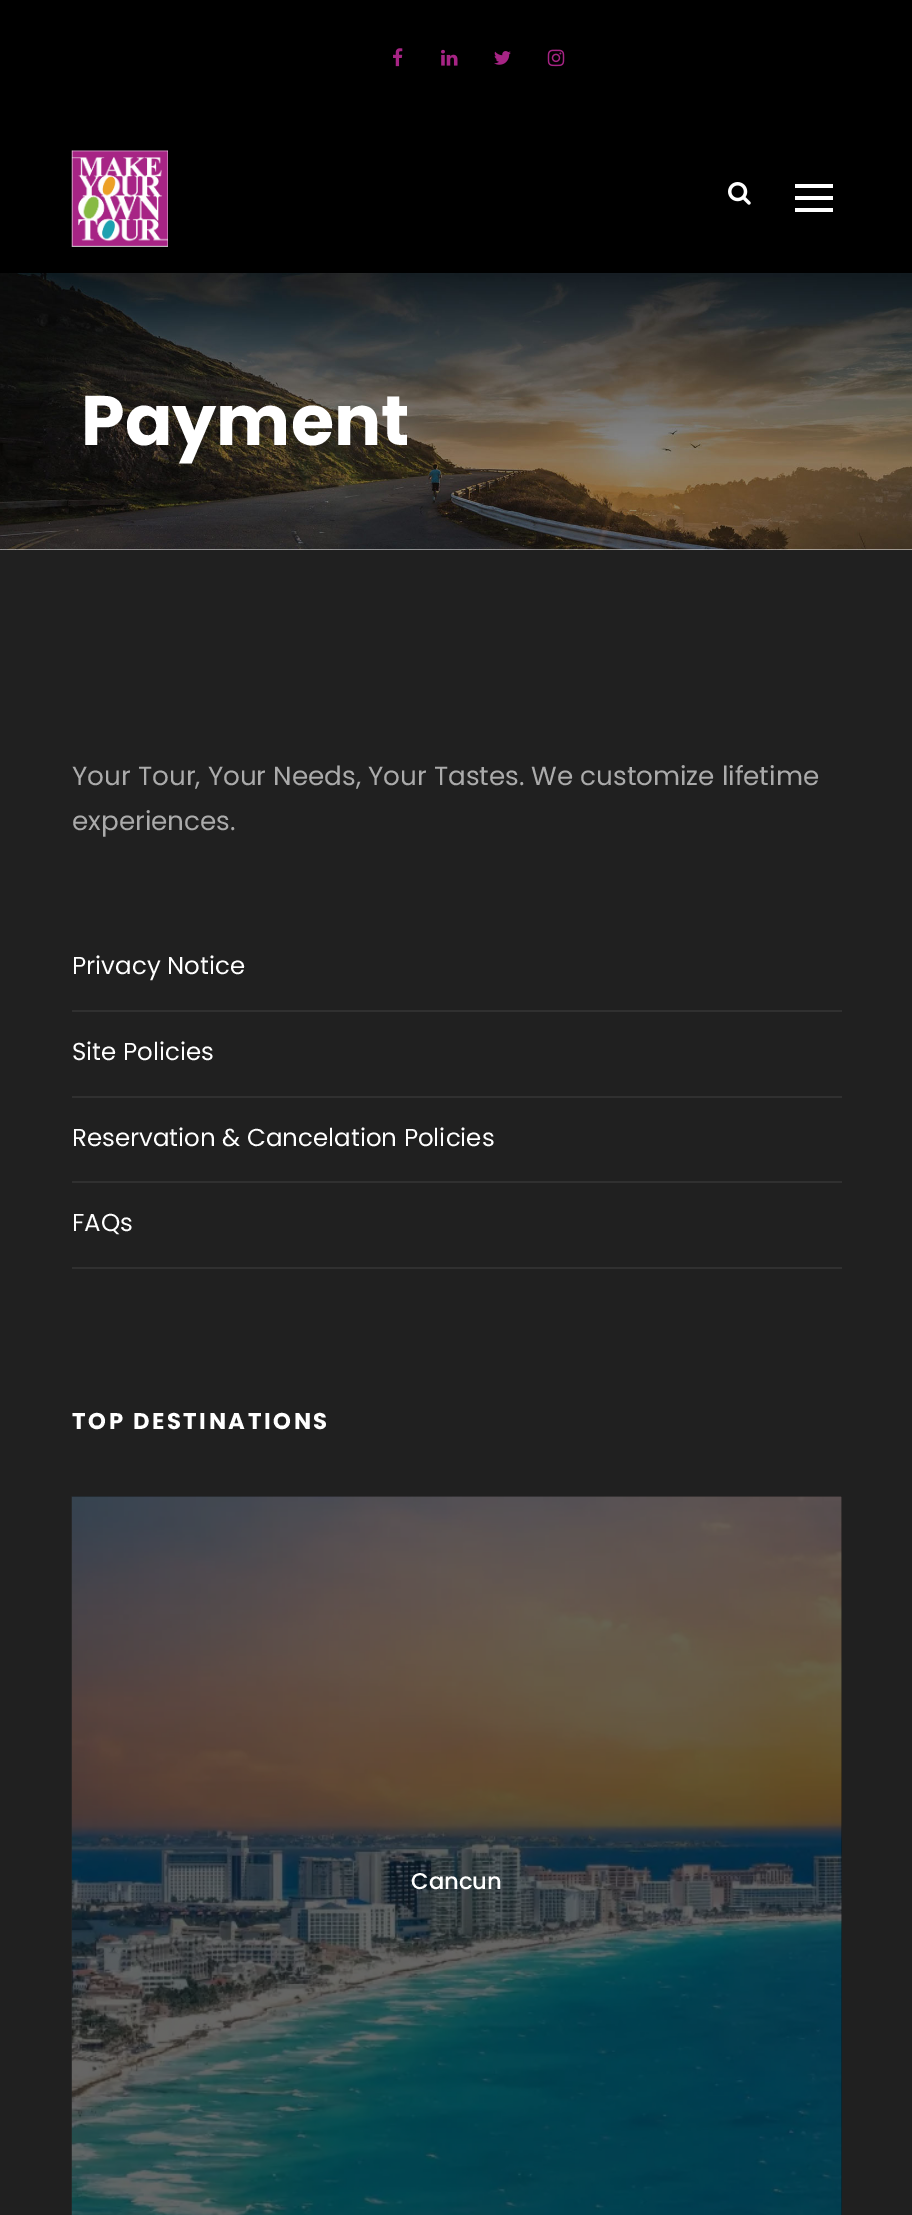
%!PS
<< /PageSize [912 2215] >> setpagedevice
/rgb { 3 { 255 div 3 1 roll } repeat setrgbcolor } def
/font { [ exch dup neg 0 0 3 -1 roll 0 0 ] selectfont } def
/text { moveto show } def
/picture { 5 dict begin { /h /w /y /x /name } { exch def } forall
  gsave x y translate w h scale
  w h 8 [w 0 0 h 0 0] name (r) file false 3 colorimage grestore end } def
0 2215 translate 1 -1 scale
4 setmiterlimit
0 0 0 rgb
0 0 912 2215 rectfill
(img_01.rgb) 393 48 10 19 picture
(img_02.rgb) 441 49 17 17 picture
(img_03.rgb) 494 51 17 14 picture
(img_04.rgb) 547 49 18 18 picture
(img_05.rgb) 71 150 97 97 picture
(img_06.rgb) 728 182 23 23 picture
255 255 255 rgb
795 184 38 4 rectfill
795 196 38 4 rectfill
795 208 38 4 rectfill
0 549 912 1 rectfill
(img_07.rgb) 0 273 912 277 picture
32 32 32 rgb
0 550 912 1665 rectfill
13 13 13 rgb
72 1496 770 719 rectfill
48 48 48 rgb
72 1010 770 2 rectfill
72 1096 770 2 rectfill
72 1181 770 2 rectfill
72 1267 770 2 rectfill
(img_08.rgb) 71 1496 771 719 picture
/Poppins-Bold 70 font
255 255 255 rgb
(Payment) 81 445 text
/Poppins-Regular 26.25 font
171 171 171 rgb
(Your Tour, Your Needs, Your Tastes. We customize lifetime) 72 785 text
(experiences.) 72 830 text
/Poppins-Regular 24.5 font
255 255 255 rgb
(Privacy Notice) 72 974 text
(Site Policies) 72 1060 text
(Reservation & Cancelation Policies) 72 1146 text
(FAQs) 72 1231 text
/Poppins-Bold 22.75 font
72 1429 moveto 2.6 0 (TOP DESTINATIONS) ashow
/Poppins-Medium 22.75 font
(Cancun) 411 1889 text
showpage
